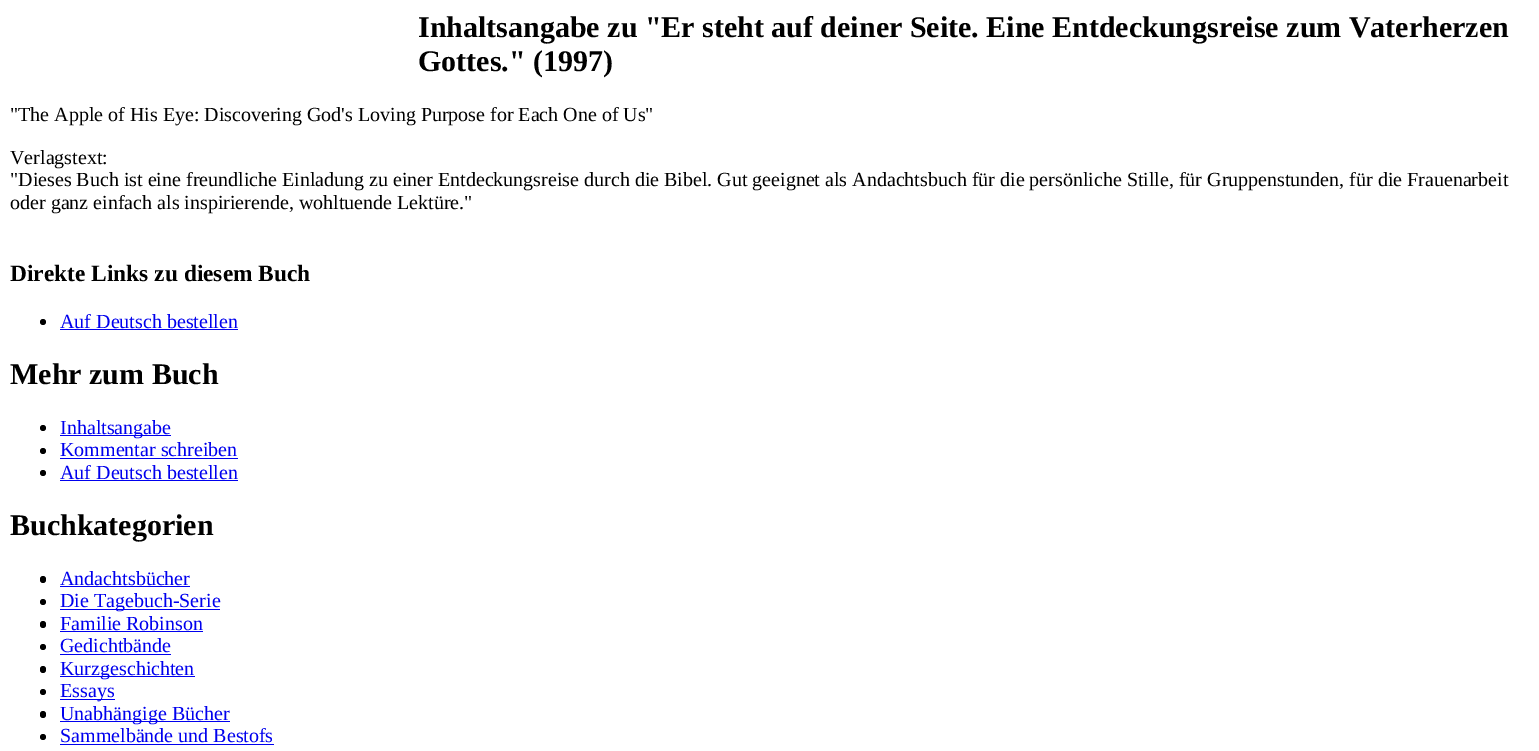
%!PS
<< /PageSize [1539 751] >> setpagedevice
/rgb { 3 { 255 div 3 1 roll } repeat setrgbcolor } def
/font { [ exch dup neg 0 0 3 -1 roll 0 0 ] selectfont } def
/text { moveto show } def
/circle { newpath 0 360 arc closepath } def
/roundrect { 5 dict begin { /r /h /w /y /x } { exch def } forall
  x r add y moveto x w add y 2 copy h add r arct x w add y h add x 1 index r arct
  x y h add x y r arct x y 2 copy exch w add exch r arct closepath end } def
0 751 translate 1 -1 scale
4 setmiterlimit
255 255 255 rgb
0 0 1539 751 rectfill
0 0 0 rgb
43 322 3 circle fill
0 0 238 rgb
60 329 178 1 rectfill
0 0 0 rgb
43 428 3 circle fill
0 0 238 rgb
60 435 111 1 rectfill
0 0 0 rgb
43 451 3 circle fill
0 0 238 rgb
60 458 178 1 rectfill
0 0 0 rgb
43 473 3 circle fill
0 0 238 rgb
60 480 178 1 rectfill
0 0 0 rgb
40 576 6 7 3 roundrect fill
0 0 238 rgb
60 586 130 1 rectfill
0 0 0 rgb
43 602 3 circle fill
0 0 238 rgb
60 609 160 1 rectfill
0 0 0 rgb
40 621 6 7 3 roundrect fill
0 0 238 rgb
60 631 143 1 rectfill
0 0 0 rgb
43 647 3 circle fill
0 0 238 rgb
60 654 111 1 rectfill
0 0 0 rgb
40 666 6 7 3 roundrect fill
0 0 238 rgb
60 676 135 1 rectfill
0 0 0 rgb
43 692 3 circle fill
0 0 238 rgb
60 699 55 1 rectfill
0 0 0 rgb
40 711 6 7 3 roundrect fill
0 0 238 rgb
60 721 170 1 rectfill
0 0 0 rgb
43 737 3 circle fill
0 0 238 rgb
60 744 214 1 rectfill
/LiberationSerif-Bold 30 font
0 0 0 rgb
(Inhaltsangabe zu "Er steht auf deiner Seite. Eine Entdeckungsreise zum Vaterherzen) 418 37 text
(Gottes." \(1997\)) 418 71 text
/LiberationSerif-Regular 20 font
("The Apple of His Eye: Discovering God's Loving Purpose for Each One of Us") 10 121 text
(Verlagstext:) 10 164 text
("Dieses Buch ist eine freundliche Einladung zu einer Entdeckungsreise durch die Bibel. Gut geeignet als Andachtsbuch für die persönliche Stille, für Gruppenstunden, für die Frauenarbeit) 10 186 text
(oder ganz einfach als inspirierende, wohltuende Lektüre.") 10 209 text
/LiberationSerif-Bold 23.4 font
(Direkte Links zu diesem Buch) 10 281 text
/LiberationSerif-Regular 20 font
0 0 238 rgb
(Auf Deutsch bestellen) 60 328 text
/LiberationSerif-Bold 30 font
0 0 0 rgb
(Mehr zum Buch) 10 384 text
/LiberationSerif-Regular 20 font
0 0 238 rgb
(Inhaltsangabe) 60 434 text
(Kommentar schreiben) 60 456 text
(Auf Deutsch bestellen) 60 479 text
/LiberationSerif-Bold 30 font
0 0 0 rgb
(Buchkategorien) 10 535 text
/LiberationSerif-Regular 20 font
0 0 238 rgb
(Andachtsbücher) 60 585 text
(Die Tagebuch-Serie) 60 607 text
(Familie Robinson) 60 630 text
(Gedichtbände) 60 652 text
(Kurzgeschichten) 60 675 text
(Essays) 60 697 text
(Unabhängige Bücher) 60 720 text
(Sammelbände und Bestofs) 60 742 text
showpage
